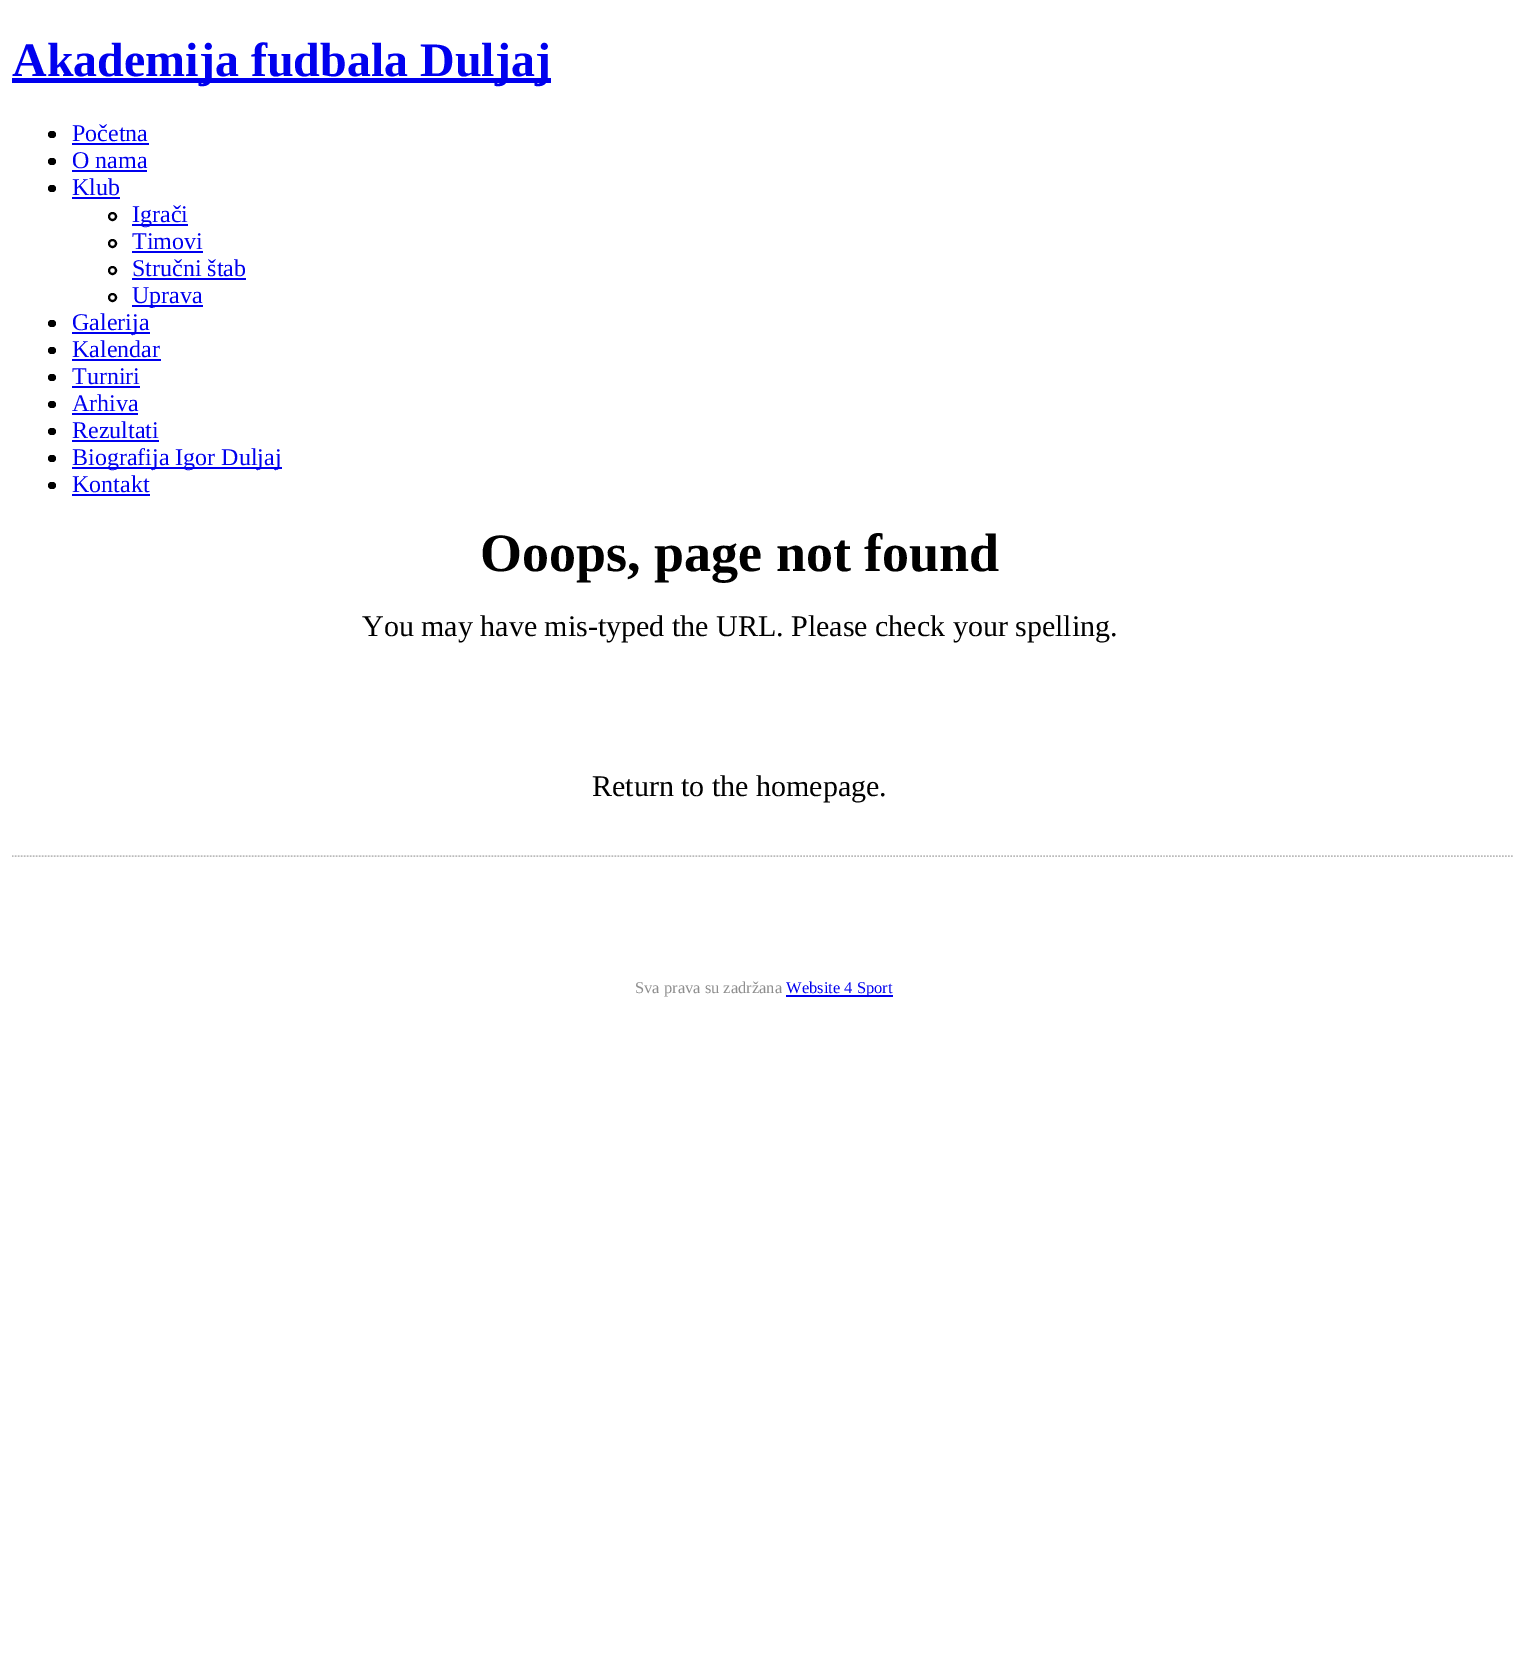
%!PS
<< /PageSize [1527 1664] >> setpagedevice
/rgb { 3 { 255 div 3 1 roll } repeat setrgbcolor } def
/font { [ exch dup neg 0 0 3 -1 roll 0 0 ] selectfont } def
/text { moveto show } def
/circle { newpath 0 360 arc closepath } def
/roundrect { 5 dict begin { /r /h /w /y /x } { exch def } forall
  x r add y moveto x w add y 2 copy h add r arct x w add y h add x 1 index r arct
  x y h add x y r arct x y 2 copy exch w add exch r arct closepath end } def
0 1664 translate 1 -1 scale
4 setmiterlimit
255 255 255 rgb
0 0 1527 1664 rectfill
0 0 238 rgb
12 78 539 5 rectfill
0 0 0 rgb
48 131 8 7 3.5 roundrect fill
0 0 238 rgb
72 143 77 2 rectfill
0 0 0 rgb
48 158 8 7 3.5 roundrect fill
0 0 238 rgb
72 170 75 2 rectfill
0 0 0 rgb
48 185 8 7 3.5 roundrect fill
0 0 238 rgb
72 197 48 2 rectfill
0 0 0 rgb
2 setlinewidth
112.5 216.5 3.5 circle stroke
0 0 238 rgb
132 224 56 2 rectfill
0 0 0 rgb
112.5 243.5 3.5 circle stroke
0 0 238 rgb
132 251 71 2 rectfill
0 0 0 rgb
112.5 270.5 3.5 circle stroke
0 0 238 rgb
132 278 114 2 rectfill
0 0 0 rgb
112.5 297.5 3.5 circle stroke
0 0 238 rgb
132 305 71 2 rectfill
0 0 0 rgb
48 320 8 7 3.5 roundrect fill
0 0 238 rgb
72 332 78 2 rectfill
0 0 0 rgb
48 347 8 7 3.5 roundrect fill
0 0 238 rgb
72 359 89 2 rectfill
0 0 0 rgb
48 374 8 7 3.5 roundrect fill
0 0 238 rgb
72 386 68 2 rectfill
0 0 0 rgb
48 401 8 7 3.5 roundrect fill
0 0 238 rgb
72 413 66 2 rectfill
0 0 0 rgb
48 428 8 7 3.5 roundrect fill
0 0 238 rgb
72 440 87 2 rectfill
0 0 0 rgb
48 455 8 7 3.5 roundrect fill
0 0 238 rgb
72 467 210 2 rectfill
0 0 0 rgb
48 482 8 7 3.5 roundrect fill
0 0 238 rgb
72 494 78 2 rectfill
186 186 186 rgb
1.5 setlinewidth
[1.5 1.5] 0 setdash
12 856 moveto 1503 0 rlineto stroke
0 0 238 rgb
786 995 107 2 rectfill
/LiberationSerif-Bold 48 font
(Akademija fudbala Duljaj) 12 76 text
/LiberationSerif-Regular 24 font
(Početna) 72 141 text
(O nama) 72 168 text
(Klub) 72 195 text
(Igrači) 132 222 text
(Timovi) 132 249 text
(Stručni štab) 132 276 text
(Uprava) 132 303 text
(Galerija) 72 330 text
(Kalendar) 72 357 text
(Turniri) 72 384 text
(Arhiva) 72 411 text
(Rezultati) 72 438 text
(Biografija Igor Duljaj) 72 465 text
(Kontakt) 72 492 text
/LiberationSerif-Bold 54 font
0 0 0 rgb
(Ooops, page not found) 480 571 text
/LiberationSerif-Regular 30 font
(You may have mis-typed the URL. Please check your spelling.) 362 636 text
(Return to the homepage.) 592 796 text
/LiberationSerif-Regular 16.5 font
142 142 142 rgb
(Sva prava su zadržana) 635 993 text
0 0 238 rgb
(Website 4 Sport) 786 993 text
showpage
